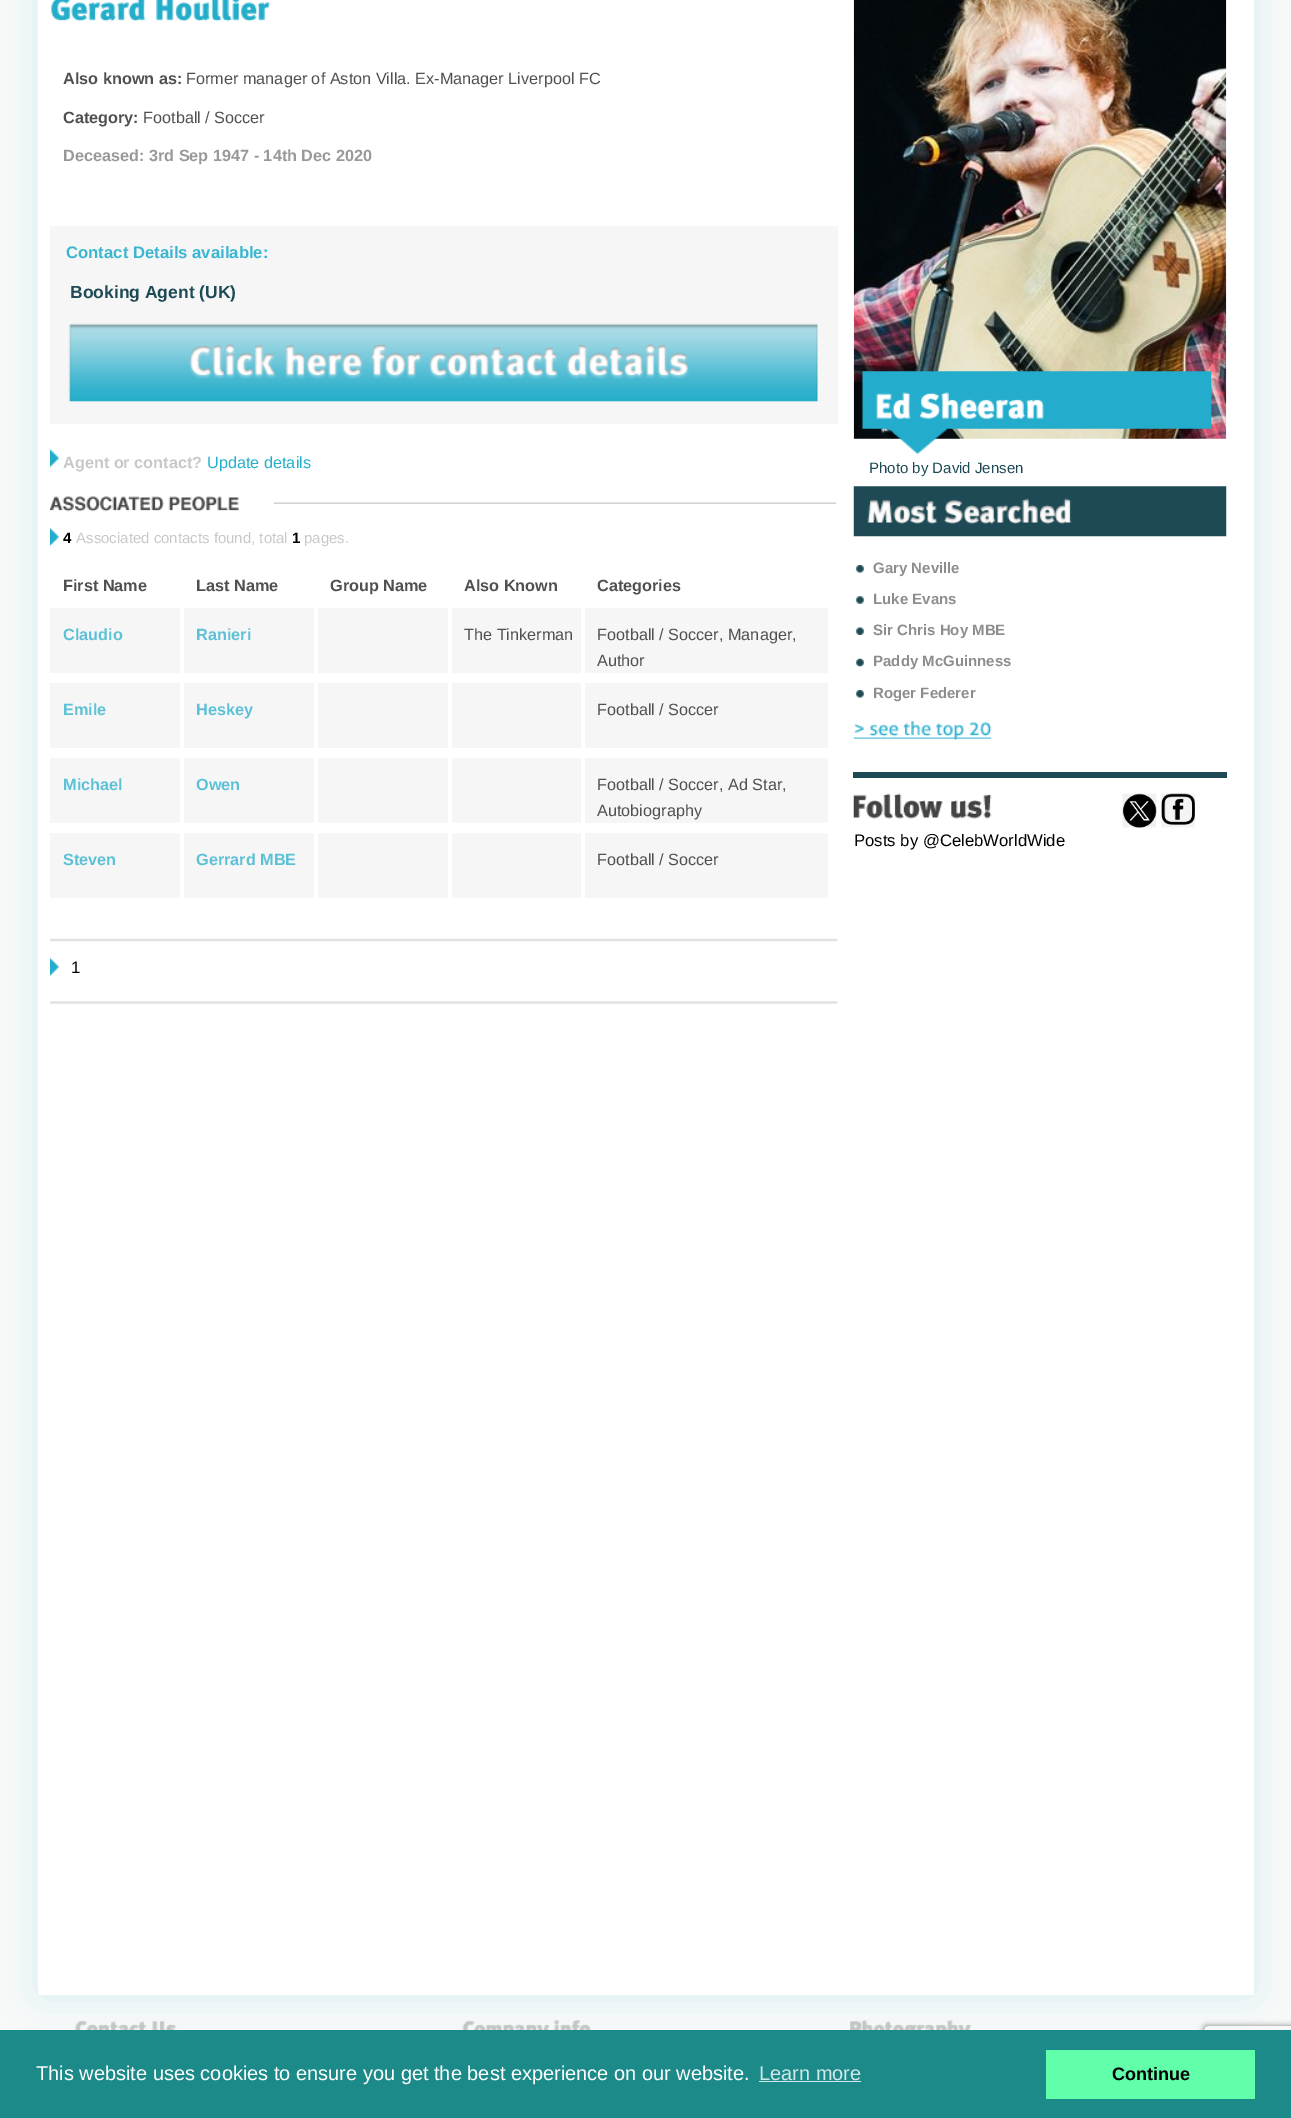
%!PS
<< /PageSize [1291 2118] /PageUsesTransparency true >> setpagedevice
/rgb { 3 { 255 div 3 1 roll } repeat setrgbcolor } def
/font { [ exch dup neg 0 0 3 -1 roll 0 0 ] selectfont } def
/text { moveto show } def
/alpha { dup .setfillconstantalpha .setstrokeconstantalpha } def
/roundrect { 5 dict begin { /r /h /w /y /x } { exch def } forall
  x r add y moveto x w add y 2 copy h add r arct x w add y h add x 1 index r arct
  x y h add x y r arct x y 2 copy exch w add exch r arct closepath end } def
/shadow { 12 dict begin { /a /b /q /h /w /y /x } { exch def } forall gsave /was 0 def
  9 -2 -9 { dup b mul 4 div /e exch def 1 sub .425 mul 2.718 exch exp 1 add a .99 .min exch div /now exch def
    1 1 now sub 1 was sub div sub alpha /was now def
    w h .min e 2 mul add 0 gt { x e sub y e sub w e 2 mul add h e 2 mul add
      q e add b .6 mul add w h .min 2 div e add .min 0 .max roundrect fill } if } for grestore end } def
/picture { 5 dict begin { /h /w /y /x /name } { exch def } forall
  gsave x y translate w h scale
  w h 8 [w 0 0 h 0 0] name (r) file false 3 colorimage grestore end } def
0 .pushpdf14devicefilter
0 2118 translate 1 -1 scale
4 setmiterlimit
249 249 249 rgb
0 0 1291 2118 rectfill
215 237 243 rgb
38 -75 1216 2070 0 25 1 shadow
255 255 255 rgb
38 0 1216 1995 rectfill
(img_01.rgb) 51 0 95 22 picture
(img_02.rgb) 156 0 115 22 picture
246 246 246 rgb
50 226 788 198 rectfill
(img_03.rgb) 68 323 750 79 picture
(img_04.rgb) 50 448 9 20 picture
(img_05.rgb) 50 496 787 16 picture
(img_06.rgb) 50 527 9 20 picture
50 608 778 65 rectfill
255 255 255 rgb
180 608 4 65 rectfill
314 608 4 65 rectfill
448 608 4 65 rectfill
581 608 4 65 rectfill
246 246 246 rgb
50 683 778 65 rectfill
255 255 255 rgb
180 683 4 65 rectfill
314 683 4 65 rectfill
448 683 4 65 rectfill
581 683 4 65 rectfill
246 246 246 rgb
50 758 778 65 rectfill
255 255 255 rgb
180 758 4 65 rectfill
314 758 4 65 rectfill
448 758 4 65 rectfill
581 758 4 65 rectfill
246 246 246 rgb
50 833 778 65 rectfill
255 255 255 rgb
180 833 4 65 rectfill
314 833 4 65 rectfill
448 833 4 65 rectfill
581 833 4 65 rectfill
(img_07.rgb) 50 938 788 4 picture
(img_06.rgb) 50 957 9 20 picture
(img_08.rgb) 50 1001 788 3 picture
(img_09.rgb) 853 0 374 439 picture
(img_10.rgb) 862 371 350 83 picture
(img_11.rgb) 876 392 35 27 picture
(img_12.rgb) 919 392 125 27 picture
(img_13.rgb) 853 486 374 51 picture
(img_14.rgb) 856 565 8 8 picture
(img_15.rgb) 856 596 8 8 picture
(img_16.rgb) 856 627 8 8 picture
(img_17.rgb) 856 658 8 9 picture
(img_14.rgb) 856 690 8 8 picture
(img_18.rgb) 853 721 139 19 picture
29 74 84 rgb
853 772 374 6 rectfill
(img_19.rgb) 853 793 139 26 picture
(img_20.rgb) 1122 793 35 35 picture
(img_21.rgb) 1161 793 34 35 picture
(img_22.rgb) 75 2020 102 10 picture
(img_23.rgb) 462 2020 129 10 picture
(img_24.rgb) 850 2020 122 10 picture
gsave
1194 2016 moveto 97 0 rlineto 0 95 rlineto -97 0 rlineto closepath 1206.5 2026 moveto 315 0 rlineto 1.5 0 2.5 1 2.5 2.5 rcurveto 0 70 rlineto 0 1.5 -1 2.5 -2.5 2.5 rcurveto -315 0 rlineto -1.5 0 -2.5 -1 -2.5 -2.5 rcurveto 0 -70 rlineto 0 -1.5 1 -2.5 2.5 -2.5 rcurveto closepath eoclip newpath
128 128 128 rgb
1204 2026 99 75 2.5 3 1 shadow
grestore
29 138 138 rgb
0 2030 1291 88 rectfill
210 232 232 rgb
759 2081 102 1 rectfill
98 255 170 rgb
1046 2050 209 49 rectfill
/LiberationSans-Bold 16.25 font
80 80 80 rgb
(Also known as:) 63 84 text
/LiberationSans-Regular 16.25 font
(Former manager of Aston Villa. Ex-Manager Liverpool FC) 186 84 text
/LiberationSans-Bold 16.25 font
(Category:) 63 123 text
/LiberationSans-Regular 16.25 font
(Football / Soccer) 143 123 text
/LiberationSans-Bold 16.25 font
153 153 153 rgb
(Deceased: 3rd Sep 1947 - 14th Dec 2020) 63 161 text
/LiberationSans-Bold 16.7 font
59 182 208 rgb
(Contact Details available:) 66 258 text
/LiberationSans-Bold 17.5 font
29 74 84 rgb
(Booking Agent \(UK\)) 70 298 text
/LiberationSans-Bold 16.25 font
200 200 200 rgb
(Agent or contact?) 63 468 text
/LiberationSans-Regular 16.25 font
36 174 203 rgb
(Update details) 207 468 text
/LiberationSans-Bold 15 font
0 0 0 rgb
(4) 63 543 text
/LiberationSans-Regular 15 font
200 200 200 rgb
(Associated contacts found, total) 76 543 text
/LiberationSans-Bold 15 font
0 0 0 rgb
(1) 292 543 text
/LiberationSans-Regular 15 font
200 200 200 rgb
(pages.) 304 543 text
/LiberationSans-Bold 16.25 font
80 80 80 rgb
(First Name) 63 591 text
(Last Name) 196 591 text
(Group Name) 330 591 text
(Also Known) 464 591 text
(Categories) 597 591 text
92 193 215 rgb
(Claudio) 63 640 text
(Ranieri) 196 640 text
/LiberationSans-Regular 16.25 font
80 80 80 rgb
(The Tinkerman) 464 640 text
(Football / Soccer, Manager,) 597 640 text
(Author) 597 666 text
/LiberationSans-Bold 16.25 font
92 193 215 rgb
(Emile) 63 715 text
(Heskey) 196 715 text
/LiberationSans-Regular 16.25 font
80 80 80 rgb
(Football / Soccer) 597 715 text
/LiberationSans-Bold 16.25 font
92 193 215 rgb
(Michael) 63 790 text
(Owen) 196 790 text
/LiberationSans-Regular 16.25 font
80 80 80 rgb
(Football / Soccer, Ad Star,) 597 790 text
(Autobiography) 597 816 text
/LiberationSans-Bold 16.25 font
92 193 215 rgb
(Steven) 63 865 text
(Gerrard MBE) 196 865 text
/LiberationSans-Regular 16.25 font
80 80 80 rgb
(Football / Soccer) 597 865 text
/LiberationSans-Regular 16.7 font
0 0 0 rgb
(1) 71 973 text
/LiberationSans-Regular 15 font
29 74 84 rgb
(Photo by David Jensen) 869 473 text
/LiberationSans-Bold 15 font
141 141 141 rgb
(Gary Neville) 873 573 text
(Luke Evans) 873 604 text
(Sir Chris Hoy MBE) 873 635 text
(Paddy McGuinness) 873 666 text
(Roger Federer) 873 698 text
/LiberationSans-Regular 16.7 font
0 0 0 rgb
(Posts by @CelebWorldWide) 854 846 text
/LiberationSans-Regular 20 font
255 255 255 rgb
(This website uses cookies to ensure you get the best experience on our website.) 36 2080 text
210 232 232 rgb
(Learn more) 759 2080 text
/LiberationSans-Bold 18 font
0 0 0 rgb
(Continue) 1112 2080 text
.poppdf14devicefilter showpage
